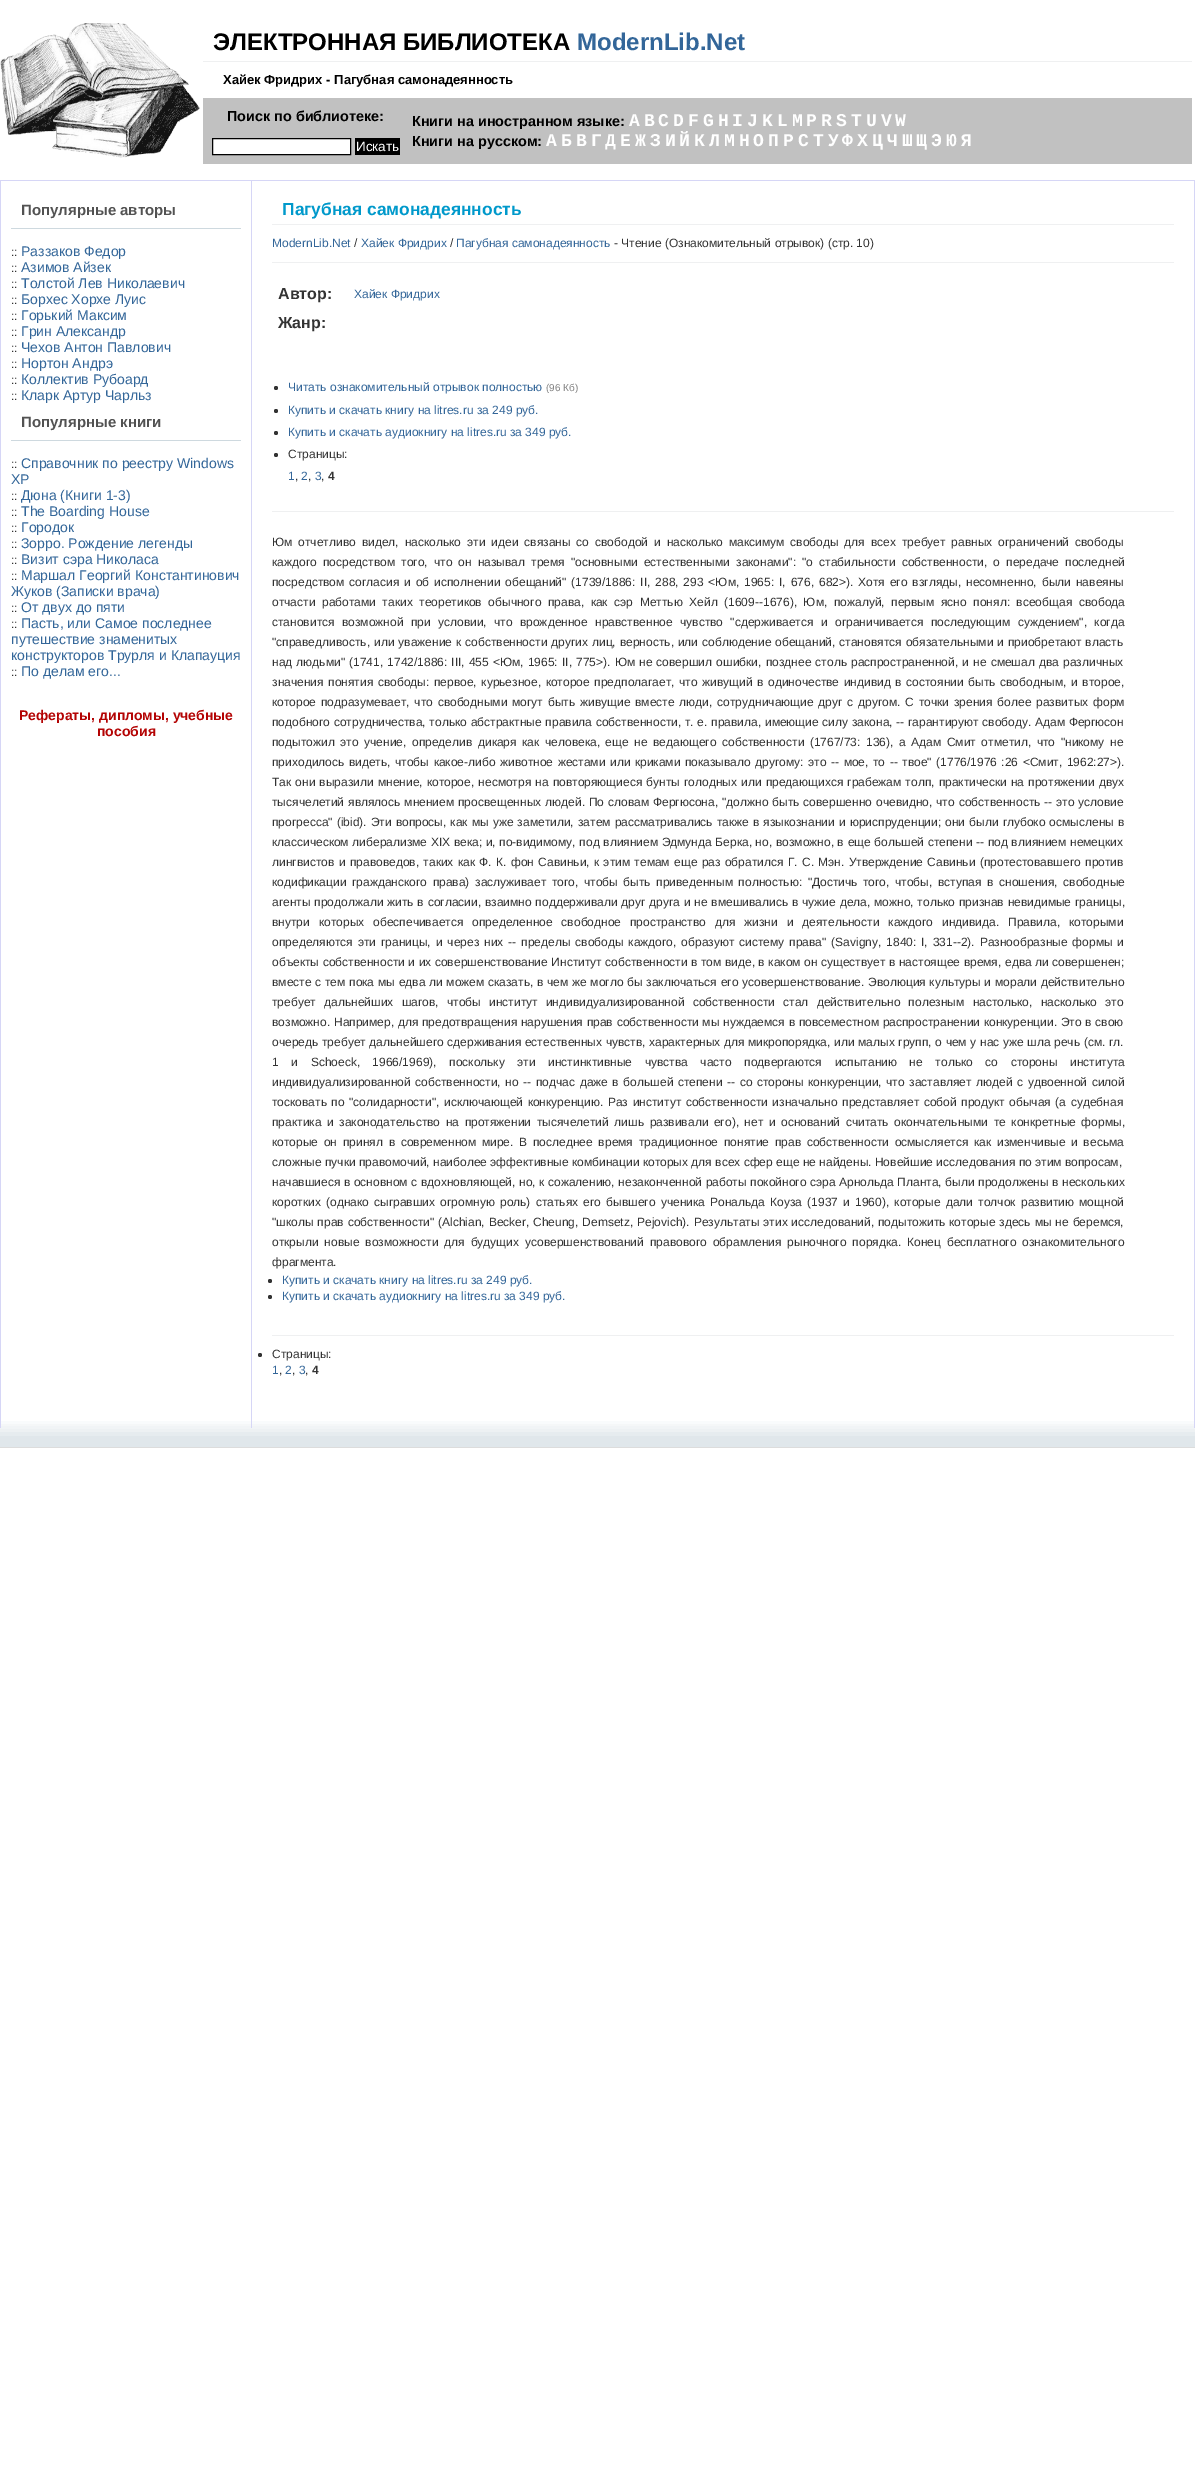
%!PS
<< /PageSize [1195 2486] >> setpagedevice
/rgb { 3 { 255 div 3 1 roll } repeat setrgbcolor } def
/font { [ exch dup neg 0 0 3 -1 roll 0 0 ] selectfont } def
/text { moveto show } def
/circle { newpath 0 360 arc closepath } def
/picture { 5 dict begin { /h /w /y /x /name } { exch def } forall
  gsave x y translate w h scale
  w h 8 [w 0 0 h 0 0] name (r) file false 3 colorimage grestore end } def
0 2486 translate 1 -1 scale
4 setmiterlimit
255 255 255 rgb
0 0 1195 2486 rectfill
(img_01.rgb) 0 1421 1195 27 picture
(img_02.rgb) 0 23 200 135 picture
239 240 241 rgb
203 61 989 1 rectfill
193 193 193 rgb
203 98 989 66 rectfill
255 255 255 rgb
212.5 138.5 moveto 138 0 rlineto 0 16 rlineto -138 0 rlineto closepath gsave fill grestore
0 0 0 rgb
stroke
355 138 45 17 rectfill
214 214 246 rgb
0 180 1195 1 rectfill
1194 180 1 1248 rectfill
0 180 1 1248 rectfill
251 181 1 1247 rectfill
206 217 223 rgb
11 228 230 1 rectfill
11 440 230 1 rectfill
239 240 241 rgb
272 224 902 1 rectfill
272 262 902 1 rectfill
51 51 51 rgb
276 388 2 circle fill
276 411 2 circle fill
276 433 2 circle fill
276 455 2 circle fill
239 240 241 rgb
272 511 902 1 rectfill
51 51 51 rgb
270 1281 2 circle fill
270 1297 2 circle fill
239 240 241 rgb
272 1335 902 1 rectfill
51 51 51 rgb
260 1355 2 circle fill
/LiberationSans-Bold 24 font
0 0 0 rgb
(ЭЛЕКТРОННАЯ БИБЛИОТЕКА) 213 50 text
51 102 153 rgb
(ModernLib.Net) 577 50 text
/LiberationSans-Bold 13 font
0 0 0 rgb
(Хайек Фридрих - Пагубная самонадеянность) 223 84 text
/LiberationSans-Bold 14.4 font
(Поиск по библиотеке:) 227 121 text
/LiberationSans-Regular 13.5 font
255 255 255 rgb
(Искать) 356 151 text
/LiberationSans-Bold 14.4 font
0 0 0 rgb
(Книги на иностранном языке:) 412 126 text
/LiberationMono-Bold 18 font
255 255 255 rgb
(A) 629 126 text
(B) 644 126 text
(C) 658 126 text
(D) 673 126 text
(F) 688 126 text
(G) 703 126 text
(H) 718 126 text
(I) 732 126 text
(J) 747 126 text
(K) 762 126 text
(L) 777 126 text
(M) 792 126 text
(P) 806 126 text
(R) 821 126 text
(S) 836 126 text
(T) 851 126 text
(U) 866 126 text
(V) 881 126 text
(W) 895 126 text
/LiberationSans-Bold 14.4 font
0 0 0 rgb
(Книги на русском:) 412 146 text
/LiberationMono-Bold 18 font
255 255 255 rgb
(А) 546 146 text
(Б) 561 146 text
(В) 576 146 text
(Г) 591 146 text
(Д) 605 146 text
(Е) 620 146 text
(Ж) 635 146 text
(З) 650 146 text
(И) 665 146 text
(Й) 679 146 text
(К) 694 146 text
(Л) 709 146 text
(М) 724 146 text
(Н) 739 146 text
(О) 753 146 text
(П) 768 146 text
(Р) 783 146 text
(С) 798 146 text
(Т) 813 146 text
(У) 828 146 text
(Ф) 842 146 text
(Х) 857 146 text
(Ц) 872 146 text
(Ч) 887 146 text
(Ш) 902 146 text
(Щ) 916 146 text
(Э) 931 146 text
(Ю) 946 146 text
(Я) 961 146 text
/LiberationSans-Bold 15 font
82 82 82 rgb
(Популярные авторы) 21 215 text
/LiberationSans-Regular 12 font
51 51 51 rgb
(::) 11 256 text
/LiberationSans-Regular 14 font
51 102 153 rgb
(Раззаков Федор) 21 256 text
/LiberationSans-Regular 12 font
51 51 51 rgb
(::) 11 272 text
/LiberationSans-Regular 14 font
51 102 153 rgb
(Азимов Айзек) 21 272 text
/LiberationSans-Regular 12 font
51 51 51 rgb
(::) 11 288 text
/LiberationSans-Regular 14 font
51 102 153 rgb
(Толстой Лев Николаевич) 21 288 text
/LiberationSans-Regular 12 font
51 51 51 rgb
(::) 11 304 text
/LiberationSans-Regular 14 font
51 102 153 rgb
(Борхес Хорхе Луис) 21 304 text
/LiberationSans-Regular 12 font
51 51 51 rgb
(::) 11 320 text
/LiberationSans-Regular 14 font
51 102 153 rgb
(Горький Максим) 21 320 text
/LiberationSans-Regular 12 font
51 51 51 rgb
(::) 11 336 text
/LiberationSans-Regular 14 font
51 102 153 rgb
(Грин Александр) 21 336 text
/LiberationSans-Regular 12 font
51 51 51 rgb
(::) 11 352 text
/LiberationSans-Regular 14 font
51 102 153 rgb
(Чехов Антон Павлович) 21 352 text
/LiberationSans-Regular 12 font
51 51 51 rgb
(::) 11 368 text
/LiberationSans-Regular 14 font
51 102 153 rgb
(Нортон Андрэ) 21 368 text
/LiberationSans-Regular 12 font
51 51 51 rgb
(::) 11 384 text
/LiberationSans-Regular 14 font
51 102 153 rgb
(Коллектив Рубоард) 21 384 text
/LiberationSans-Regular 12 font
51 51 51 rgb
(::) 11 400 text
/LiberationSans-Regular 14 font
51 102 153 rgb
(Кларк Артур Чарльз) 21 400 text
/LiberationSans-Bold 15 font
82 82 82 rgb
(Популярные книги) 21 427 text
/LiberationSans-Regular 12 font
51 51 51 rgb
(::) 11 468 text
/LiberationSans-Regular 14 font
51 102 153 rgb
(Справочник по реестру Windows) 21 468 text
(XP) 11 484 text
/LiberationSans-Regular 12 font
51 51 51 rgb
(::) 11 500 text
/LiberationSans-Regular 14 font
51 102 153 rgb
(Дюна \(Книги 1-3\)) 21 500 text
/LiberationSans-Regular 12 font
51 51 51 rgb
(::) 11 516 text
/LiberationSans-Regular 14 font
51 102 153 rgb
(The Boarding House) 21 516 text
/LiberationSans-Regular 12 font
51 51 51 rgb
(::) 11 532 text
/LiberationSans-Regular 14 font
51 102 153 rgb
(Городок) 21 532 text
/LiberationSans-Regular 12 font
51 51 51 rgb
(::) 11 548 text
/LiberationSans-Regular 14 font
51 102 153 rgb
(Зорро. Рождение легенды) 21 548 text
/LiberationSans-Regular 12 font
51 51 51 rgb
(::) 11 564 text
/LiberationSans-Regular 14 font
51 102 153 rgb
(Визит сэра Николаса) 21 564 text
/LiberationSans-Regular 12 font
51 51 51 rgb
(::) 11 580 text
/LiberationSans-Regular 14 font
51 102 153 rgb
(Маршал Георгий Константинович) 21 580 text
(Жуков \(Записки врача\)) 11 596 text
/LiberationSans-Regular 12 font
51 51 51 rgb
(::) 11 612 text
/LiberationSans-Regular 14 font
51 102 153 rgb
(От двух до пяти) 21 612 text
/LiberationSans-Regular 12 font
51 51 51 rgb
(::) 11 628 text
/LiberationSans-Regular 14 font
51 102 153 rgb
(Пасть, или Самое последнее) 21 628 text
(путешествие знаменитых) 11 644 text
(конструкторов Трурля и Клапауция) 11 660 text
/LiberationSans-Regular 12 font
51 51 51 rgb
(::) 11 676 text
/LiberationSans-Regular 14 font
51 102 153 rgb
(По делам его...) 21 676 text
/LiberationSans-Bold 14 font
180 4 4 rgb
(Рефераты, дипломы, учебные) 19 720 text
(пособия) 97 736 text
/LiberationSans-Bold 17.4 font
0 153 203 rgb
(Пагубная самонадеянность) 282 215 text
/LiberationSans-Regular 12 font
51 102 153 rgb
(ModernLib.Net) 272 247 text
51 51 51 rgb
(/) 354 247 text
51 102 153 rgb
(Хайек Фридрих) 361 247 text
51 51 51 rgb
(/) 450 247 text
51 102 153 rgb
(Пагубная самонадеянность) 456 247 text
51 51 51 rgb
(- Чтение \(Ознакомительный отрывок\) \(стр. 10\)) 614 247 text
/LiberationSans-Bold 16 font
(Автор:) 278 299 text
/LiberationSans-Regular 12 font
51 102 153 rgb
(Хайек Фридрих) 354 298 text
/LiberationSans-Bold 16 font
51 51 51 rgb
(Жанр:) 278 328 text
/LiberationSans-Regular 12 font
51 102 153 rgb
(Читать ознакомительный отрывок полностью) 288 391 text
/LiberationSans-Regular 10 font
128 128 128 rgb
(\(96 Кб\)) 546 391 text
/LiberationSans-Regular 12 font
51 102 153 rgb
(Купить и скачать книгу на litres.ru за 249 руб.) 288 414 text
(Купить и скачать аудиокнигу на litres.ru за 349 руб.) 288 436 text
51 51 51 rgb
(Страницы:) 288 458 text
51 102 153 rgb
(1) 288 480 text
51 51 51 rgb
(,) 295 480 text
51 102 153 rgb
(2) 301 480 text
51 51 51 rgb
(,) 308 480 text
51 102 153 rgb
(3) 315 480 text
51 51 51 rgb
(,) 321 480 text
/LiberationSans-Bold 12 font
(4) 328 480 text
/LiberationSans-Regular 12 font
272 546 moveto 2.6 0 32 (Юм отчетливо видел, насколько эти идеи связаны со свободой и насколько максимум свободы для всех требует равных ограничений свободы) widthshow
272 566 moveto 2.75 0 32 (каждого посредством того, что он называл тремя "основными естественными законами": "о стабильности собственности, о передаче последней) widthshow
272 586 moveto 1.6 0 32 (посредством согласия и об исполнении обещаний" \(1739/1886: II, 288, 293 <Юм, 1965: I, 676, 682>\). Хотя его взгляды, несомненно, были навеяны) widthshow
272 606 moveto 3.25 0 32 (отчасти работами таких теоретиков обычного права, как сэр Меттью Хейл \(1609--1676\), Юм, пожалуй, первым ясно понял: всеобщая свобода) widthshow
272 626 moveto 4 0 32 (становится возможной при условии, что врожденное нравственное чувство "сдерживается и ограничивается последующим суждением", когда) widthshow
272 646 moveto 0.6 0 32 ("справедливость, или уважение к собственности других лиц, верность, или соблюдение обещаний, становятся обязательными и приобретают власть) widthshow
272 666 moveto 0.8 0 32 (над людьми" \(1741, 1742/1886: III, 455 <Юм, 1965: II, 775>\). Юм не совершил ошибки, позднее столь распространенной, и не смешал два различных) widthshow
272 686 moveto 1.25 0 32 (значения понятия свободы: первое, курьезное, которое предполагает, что живущий в одиночестве индивид в состоянии быть свободным, и второе,) widthshow
272 706 moveto 1.5 0 32 (которое подразумевает, что свободными могут быть живущие вместе люди, сотрудничающие друг с другом. С точки зрения более развитых форм) widthshow
272 726 moveto 0.4 0 32 (подобного сотрудничества, только абстрактные правила собственности, т. е. правила, имеющие силу закона, -- гарантируют свободу. Адам Фергюсон) widthshow
272 746 moveto 2.25 0 32 (подытожил это учение, определив дикаря как человека, еще не ведающего собственности \(1767/73: 136\), а Адам Смит отметил, что "никому не) widthshow
272 766 moveto 1.2 0 32 (приходилось видеть, чтобы какое-либо животное жестами или криками показывало другому: это -- мое, то -- твое" \(1776/1976 :26 <Смит, 1962:27>\).) widthshow
272 786 moveto 0.75 0 32 (Так они выразили мнение, которое, несмотря на повторяющиеся бунты голодных или предающихся грабежам толп, практически на протяжении двух) widthshow
272 806 moveto 0.6 0 32 (тысячелетий являлось мнением просвещенных людей. По словам Фергюсона, "должно быть совершенно очевидно, что собственность -- это условие) widthshow
272 826 moveto 0.75 0 32 (прогресса" \(ibid\). Эти вопросы, как мы уже заметили, затем рассматривались также в языкознании и юриспруденции; они были глубоко осмыслены в) widthshow
272 846 moveto 0.3 0 32 (классическом либерализме XIX века; и, по-видимому, под влиянием Эдмунда Берка, но, возможно, в еще большей степени -- под влиянием немецких) widthshow
272 866 moveto 1 0 32 (лингвистов и правоведов, таких как Ф. К. фон Савиньи, к этим темам еще раз обратился Г. С. Мэн. Утверждение Савиньи \(протестовавшего против) widthshow
272 886 moveto 2.25 0 32 (кодификации гражданского права\) заслуживает того, чтобы быть приведенным полностью: "Достичь того, чтобы, вступая в сношения, свободные) widthshow
272 906 moveto 0.5 0 32 (агенты продолжали жить в согласии, взаимно поддерживали друг друга и не вмешивались в чужие дела, можно, только признав невидимые границы,) widthshow
272 926 moveto 5.6 0 32 (внутри которых обеспечивается определенное свободное пространство для жизни и деятельности каждого индивида. Правила, которыми) widthshow
272 946 moveto 1.6 0 32 (определяются эти границы, и через них -- пределы свободы каждого, образуют систему права" \(Savigny, 1840: I, 331--2\). Разнообразные формы и) widthshow
272 966 moveto 0.2 0 32 (объекты собственности и их совершенствование Институт собственности в том виде, в каком он существует в настоящее время, едва ли совершенен;) widthshow
272 986 moveto 0.4 0 32 (вместе с тем пока мы едва ли можем сказать, в чем же могло бы заключаться его усовершенствование. Эволюция культуры и морали действительно) widthshow
272 1006 moveto 4.9 0 32 (требует дальнейших шагов, чтобы институт индивидуализированной собственности стал действительно полезным настолько, насколько это) widthshow
272 1026 moveto 0.4 0 32 (возможно. Например, для предотвращения нарушения прав собственности мы нуждаемся в повсеместном распространении конкуренции. Это в свою) widthshow
272 1046 moveto 0.3 0 32 (очередь требует дальнейшего сдерживания естественных чувств, характерных для микропорядка, или малых групп, о чем у нас уже шла речь \(см. гл.) widthshow
272 1066 moveto 9.25 0 32 (1 и Schoeck, 1966/1969\), поскольку эти инстинктивные чувства часто подвергаются испытанию не только со стороны института) widthshow
272 1086 moveto 1.25 0 32 (индивидуализированной собственности, но -- подчас даже в большей степени -- со стороны конкуренции, что заставляет людей с удвоенной силой) widthshow
272 1106 moveto 1.25 0 32 (тосковать по "солидарности", исключающей конкуренцию. Раз институт собственности изначально представляет собой продукт обычая \(а судебная) widthshow
272 1126 moveto 2.25 0 32 (практика и законодательство на протяжении тысячелетий лишь развивали его\), нет и оснований считать окончательными те конкретные формы,) widthshow
272 1146 moveto 2.4 0 32 (которые он принял в современном мире. В последнее время традиционное понятие прав собственности осмысляется как изменчивые и весьма) widthshow
(сложные пучки правомочий, наиболее эффективные комбинации которых для всех сфер еще не найдены. Новейшие исследования по этим вопросам,) 272 1166 text
272 1186 moveto 0.25 0 32 (начавшиеся в основном с вдохновляющей, но, к сожалению, незаконченной работы покойного сэра Арнольда Планта, были продолжены в нескольких) widthshow
272 1206 moveto 1.9 0 32 (коротких \(однако сыгравших огромную роль\) статьях его бывшего ученика Рональда Коуза \(1937 и 1960\), которые дали толчок развитию мощной) widthshow
272 1226 moveto 0.6 0 32 ("школы прав собственности" \(Alchian, Becker, Cheung, Demsetz, Pejovich\). Результаты этих исследований, подытожить которые здесь мы не беремся,) widthshow
272 1246 moveto 2.6 0 32 (открыли новые возможности для будущих усовершенствований правового обрамления рыночного порядка.) widthshow
907 1246 moveto 2.6 0 32 (Конец бесплатного ознакомительного) widthshow
(фрагмента.) 272 1266 text
51 102 153 rgb
(Купить и скачать книгу на litres.ru за 249 руб.) 282 1284 text
(Купить и скачать аудиокнигу на litres.ru за 349 руб.) 282 1300 text
51 51 51 rgb
(Страницы:) 272 1358 text
51 102 153 rgb
(1) 272 1374 text
51 51 51 rgb
(,) 279 1374 text
51 102 153 rgb
(2) 285 1374 text
51 51 51 rgb
(,) 292 1374 text
51 102 153 rgb
(3) 299 1374 text
51 51 51 rgb
(,) 305 1374 text
/LiberationSans-Bold 12 font
(4) 312 1374 text
showpage
